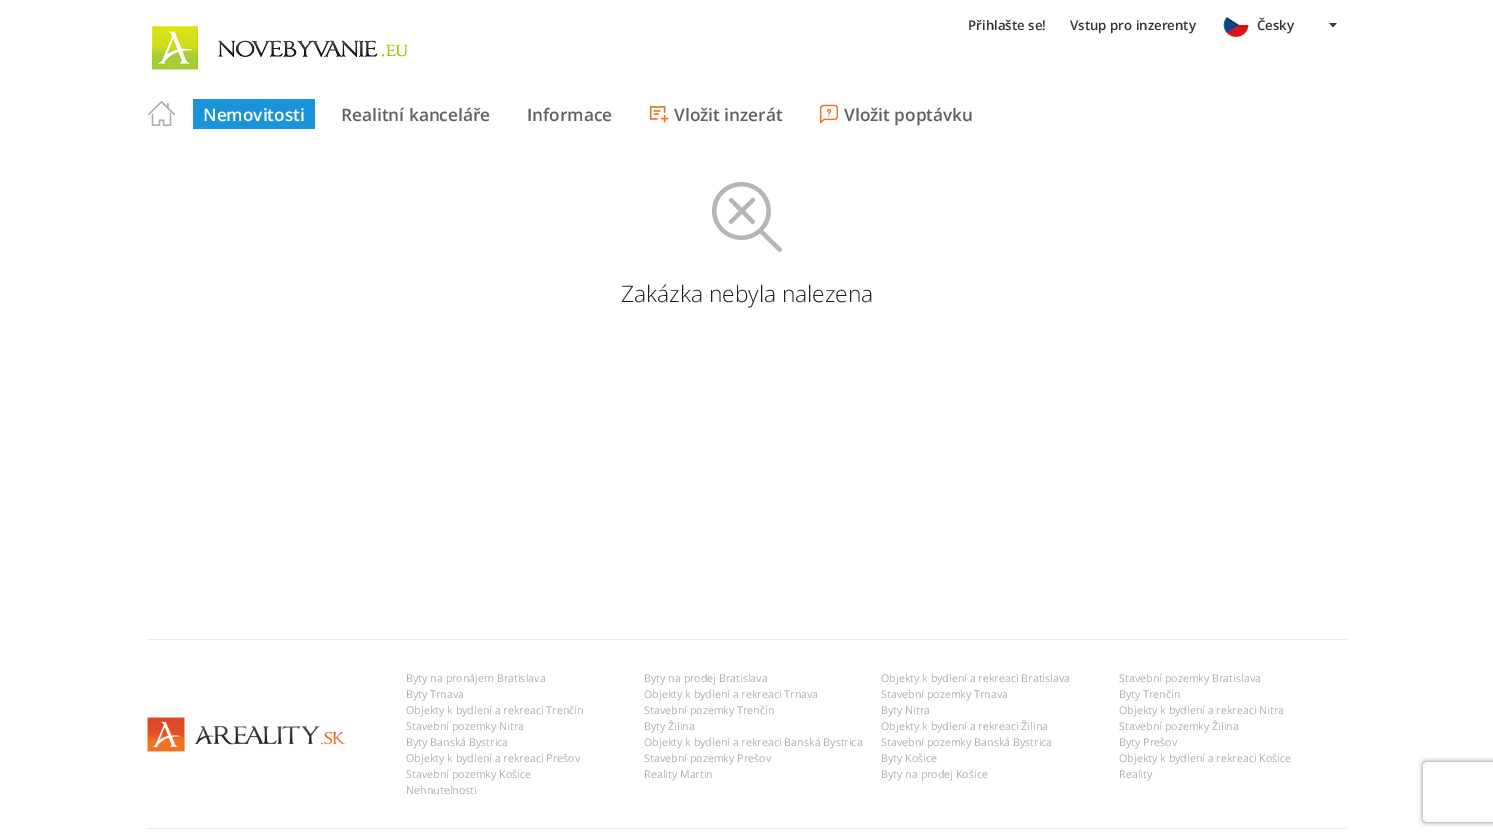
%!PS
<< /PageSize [1493 836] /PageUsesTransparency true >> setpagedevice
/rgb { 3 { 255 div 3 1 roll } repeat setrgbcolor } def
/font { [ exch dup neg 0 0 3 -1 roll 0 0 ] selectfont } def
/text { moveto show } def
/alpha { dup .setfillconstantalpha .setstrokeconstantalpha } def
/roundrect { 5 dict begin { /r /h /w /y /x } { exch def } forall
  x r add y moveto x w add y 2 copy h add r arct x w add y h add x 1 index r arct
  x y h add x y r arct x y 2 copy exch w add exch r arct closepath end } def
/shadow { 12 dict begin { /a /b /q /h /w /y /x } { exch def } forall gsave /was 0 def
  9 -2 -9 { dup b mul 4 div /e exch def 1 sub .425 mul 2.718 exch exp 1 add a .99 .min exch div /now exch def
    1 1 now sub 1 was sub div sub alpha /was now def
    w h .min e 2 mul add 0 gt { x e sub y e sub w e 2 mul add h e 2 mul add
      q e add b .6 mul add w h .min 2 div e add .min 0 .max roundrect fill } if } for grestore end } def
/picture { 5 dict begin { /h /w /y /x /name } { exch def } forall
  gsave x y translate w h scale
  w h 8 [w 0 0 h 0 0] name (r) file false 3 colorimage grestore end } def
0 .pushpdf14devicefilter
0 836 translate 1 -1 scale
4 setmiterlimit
255 255 255 rgb
0 0 1493 836 rectfill
(img_01.rgb) 1223 17 26 20 picture
(img_02.rgb) 1329 23 8 4 picture
(img_03.rgb) 148 101 27 25 picture
26 147 216 rgb
193 99 122 30 rectfill
(img_04.rgb) 649 106 20 17 picture
(img_05.rgb) 819 104 19 20 picture
(img_06.rgb) 152 26 256 44 picture
(img_07.rgb) 712 182 70 70 picture
233 233 233 rgb
147 639 1200 1 rectfill
147 828 1200 1 rectfill
(img_08.rgb) 147 717 199 35 picture
gsave
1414 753 moveto 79 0 rlineto 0 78 rlineto -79 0 rlineto closepath 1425 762 moveto 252 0 rlineto 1 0 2 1 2 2 rcurveto 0 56 rlineto 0 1 -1 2 -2 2 rcurveto -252 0 rlineto -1 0 -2 -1 -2 -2 rcurveto 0 -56 rlineto 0 -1 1 -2 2 -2 rcurveto closepath eoclip newpath
128 128 128 rgb
1423 762 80 60 2 2.5 1 shadow
grestore
/OpenSans-SemiBold 13.25 font
51 51 51 rgb
(Přihlašte se!) 968 30 text
(Vstup pro inzerenty) 1070 30 text
(Česky) 1257 30 text
/OpenSans-SemiBold 17.25 font
255 255 255 rgb
(Nemovitosti) 203 121 text
96 96 96 rgb
(Realitní kanceláře) 341 121 text
(Informace) 527 121 text
(Vložit inzerát) 674 121 text
(Vložit poptávku) 844 121 text
/OpenSans-Light 22.75 font
31 31 31 rgb
(Zakázka nebyla nalezena) 621 302 text
/OpenSans-Regular 10.7 font
175 175 175 rgb
(Byty na pronájem Bratislava) 406 682 text
(Byty na prodej Bratislava) 644 682 text
(Objekty k bydlení a rekreaci Bratislava) 881 682 text
(Stavební pozemky Bratislava) 1119 682 text
(Byty Trnava) 406 698 text
(Objekty k bydlení a rekreaci Trnava) 644 698 text
(Stavební pozemky Trnava) 881 698 text
(Byty Trenčín) 1119 698 text
(Objekty k bydlení a rekreaci Trenčín) 406 714 text
(Stavební pozemky Trenčín) 644 714 text
(Byty Nitra) 881 714 text
(Objekty k bydlení a rekreaci Nitra) 1119 714 text
(Stavební pozemky Nitra) 406 730 text
(Byty Žilina) 644 730 text
(Objekty k bydlení a rekreaci Žilina) 881 730 text
(Stavební pozemky Žilina) 1119 730 text
(Byty Banská Bystrica) 406 746 text
(Objekty k bydlení a rekreaci Banská Bystrica) 644 746 text
(Stavební pozemky Banská Bystrica) 881 746 text
(Byty Prešov) 1119 746 text
(Objekty k bydlení a rekreaci Prešov) 406 762 text
(Stavební pozemky Prešov) 644 762 text
(Byty Košice) 881 762 text
(Objekty k bydlení a rekreaci Košice) 1119 762 text
(Stavební pozemky Košice) 406 778 text
(Reality Martin) 644 778 text
(Byty na prodej Košice) 881 778 text
(Reality) 1119 778 text
(Nehnuteľnosti) 406 794 text
.poppdf14devicefilter showpage
